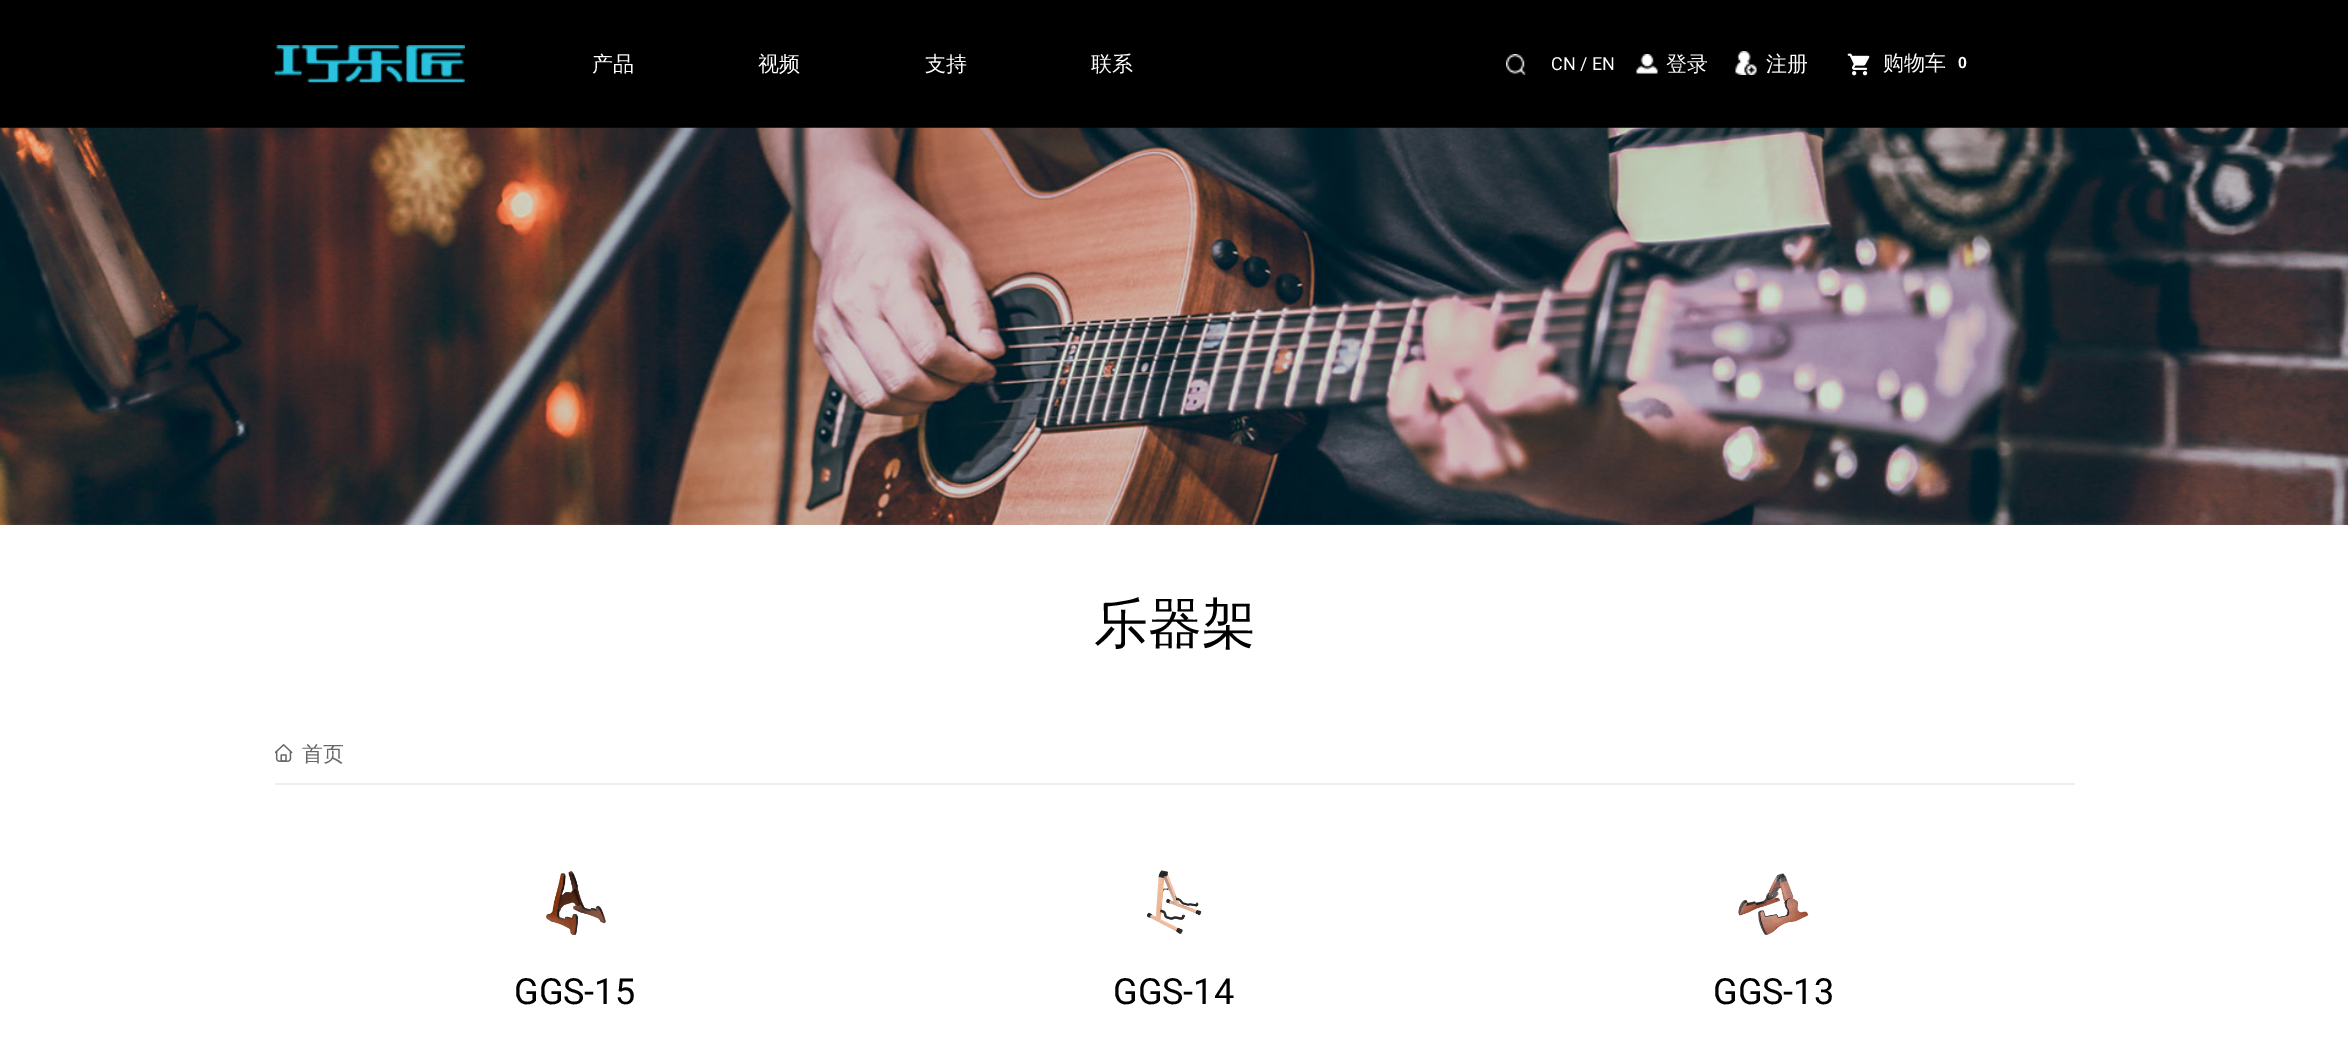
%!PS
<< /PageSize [2348 1058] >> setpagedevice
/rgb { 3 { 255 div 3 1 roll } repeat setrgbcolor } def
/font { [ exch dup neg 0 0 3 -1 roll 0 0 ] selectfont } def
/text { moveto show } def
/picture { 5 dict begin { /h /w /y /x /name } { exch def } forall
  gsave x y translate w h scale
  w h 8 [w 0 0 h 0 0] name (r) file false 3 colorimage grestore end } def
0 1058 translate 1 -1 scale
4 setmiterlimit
255 255 255 rgb
0 0 2348 1058 rectfill
0 0 0 rgb
0 0 2348 128 rectfill
(img_01.rgb) 274 45 191 38 picture
(img_02.rgb) 1506 54 20 21 picture
(img_03.rgb) 1636 54 22 20 picture
(img_04.rgb) 1735 51 22 24 picture
(img_05.rgb) 1847 53 23 23 picture
(img_06.rgb) 0 127 2348 398 picture
238 238 238 rgb
275 783 1800 2 rectfill
(img_07.rgb) 275 744 18 18 picture
(img_08.rgb) 546 871 60 64 picture
(img_09.rgb) 1147 870 55 64 picture
(img_10.rgb) 1738 873 71 62 picture
/WenQuanYiZenHei-Medium 21 font
255 255 255 rgb
(产品) 592 71 text
(视频) 758 71 text
(支持) 925 71 text
(联系) 1091 71 text
/Roboto-Regular 18 font
(CN / EN) 1551 70 text
/WenQuanYiZenHei-Medium 21 font
(登录) 1666 71 text
(注册) 1766 71 text
(购物车) 1883 70 text
/LiberationSans-Bold 16 font
(0) 1958 68 text
/WenQuanYiZenHei-Medium 54 font
0 0 0 rgb
(乐器架) 1094 642 text
/WenQuanYiZenHei-Medium 21 font
102 102 102 rgb
(首页) 302 761 text
/Roboto-Regular 36 font
0 0 0 rgb
(GGS-15) 514 1004 text
(GGS-14) 1113 1004 text
(GGS-13) 1713 1004 text
showpage
